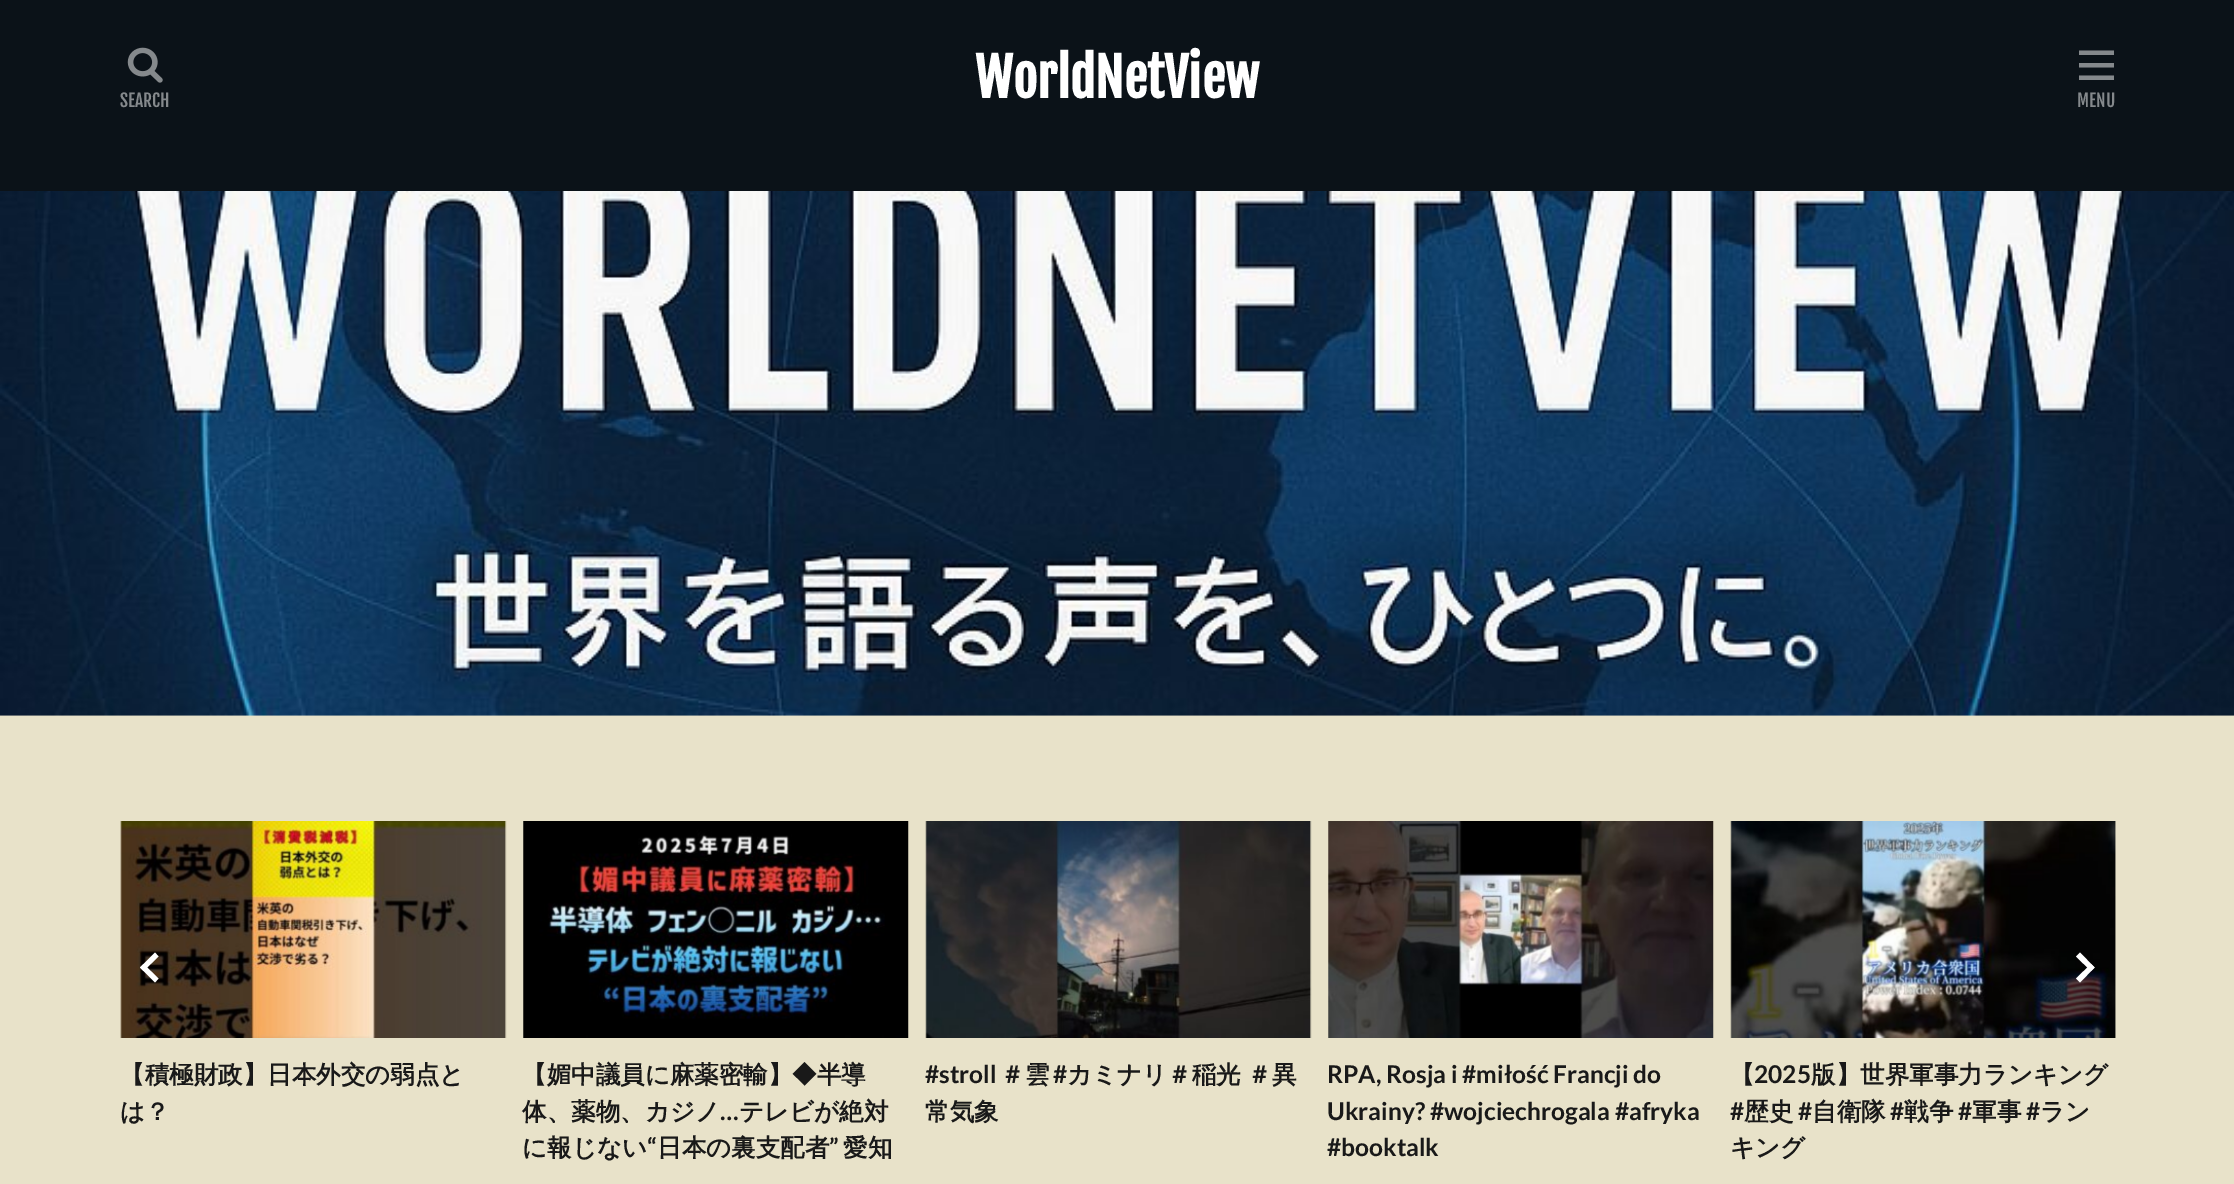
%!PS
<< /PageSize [2234 1184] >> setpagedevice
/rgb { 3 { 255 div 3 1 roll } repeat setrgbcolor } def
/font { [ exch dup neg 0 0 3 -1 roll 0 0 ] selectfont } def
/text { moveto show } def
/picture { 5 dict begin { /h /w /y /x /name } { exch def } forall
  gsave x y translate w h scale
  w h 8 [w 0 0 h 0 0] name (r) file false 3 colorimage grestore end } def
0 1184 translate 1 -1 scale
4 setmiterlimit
232 226 201 rgb
0 0 2234 1184 rectfill
11 18 24 rgb
0 0 2234 191 rectfill
(img_01.rgb) 127 47 36 36 picture
133 137 140 rgb
2079 50.5 moveto 35 0 rlineto 0 4.5 rlineto -35 0 rlineto closepath 2079 63 moveto 35 0 rlineto 0 4.5 rlineto -35 0 rlineto closepath 2079 75.5 moveto 35 0 rlineto 0 4.5 rlineto -35 0 rlineto closepath fill
(img_02.rgb) 0 191 2234 525 picture
(img_03.rgb) 120 821 387 217 picture
255 255 255 rgb
155 982.5 moveto -15 -15 rlineto 3.5 -3.5 rlineto 15 14.5 rlineto closepath fill
143.5 971 moveto -3.5 -3.5 rlineto 15 -15 rlineto 3.5 4 rlineto closepath fill
(img_07.rgb) 1730 821 386 217 picture
2080 952.5 moveto 14.5 15 rlineto -3.5 3.5 rlineto -15 -14.5 rlineto closepath fill
2091 964 moveto 3.5 3.5 rlineto -14.5 15 rlineto -4 -4 rlineto closepath fill
(img_04.rgb) 523 821 386 217 picture
(img_05.rgb) 925 821 387 217 picture
(img_06.rgb) 1328 821 386 217 picture
/FjallaOne-Regular 17.5 font
133 137 140 rgb
(SEARCH) 120 107 text
/FjallaOne-Bold 52.5 font
255 255 255 rgb
(WorldNetView) 975 98 text
/FjallaOne-Regular 17.5 font
133 137 140 rgb
(MENU) 2077 107 text
/WenQuanYiZenHei-Bold 24.5 font
25 25 25 rgb
(【積極財政】日本外交の弱点と) 120 1083 text
(は？) 120 1120 text
(【媚中議員に麻薬密輸】◆半導) 522 1083 text
(体、薬物、カジノ) 522 1120 text
/Lato-Bold 24.5 font
(…) 720 1120 text
/WenQuanYiZenHei-Bold 24.5 font
(テレビが絶対) 739 1120 text
(に報じない) 522 1156 text
/Lato-Bold 24.5 font
(“) 647 1156 text
/WenQuanYiZenHei-Bold 24.5 font
(日本の裏支配者) 657 1156 text
/Lato-Bold 24.5 font
(”) 829 1156 text
/WenQuanYiZenHei-Bold 24.5 font
(愛知) 843 1156 text
/Lato-Bold 24.5 font
(#stroll) 925 1083 text
/WenQuanYiZenHei-Bold 24.5 font
(＃雲) 1000 1083 text
/Lato-Bold 24.5 font
(#) 1053 1083 text
/WenQuanYiZenHei-Bold 24.5 font
1067 1083 moveto -1 0 32 (カミナリ＃稲光 ＃異) widthshow
(常気象) 925 1120 text
/Lato-Bold 24.5 font
(RPA, Rosja i #miłość Francji do) 1327 1083 text
(Ukrainy? #wojciechrogala #afryka) 1327 1120 text
(#booktalk) 1327 1156 text
/WenQuanYiZenHei-Bold 24.5 font
(【) 1730 1083 text
/Lato-Bold 24.5 font
(2025) 1754 1083 text
/WenQuanYiZenHei-Bold 24.5 font
(版】世界軍事力ランキング) 1811 1083 text
/Lato-Bold 24.5 font
(#) 1730 1120 text
/WenQuanYiZenHei-Bold 24.5 font
(歴史) 1744 1120 text
/Lato-Bold 24.5 font
(#) 1798 1120 text
/WenQuanYiZenHei-Bold 24.5 font
(自衛隊) 1812 1120 text
/Lato-Bold 24.5 font
(#) 1890 1120 text
/WenQuanYiZenHei-Bold 24.5 font
(戦争) 1904 1120 text
/Lato-Bold 24.5 font
(#) 1958 1120 text
/WenQuanYiZenHei-Bold 24.5 font
(軍事) 1972 1120 text
/Lato-Bold 24.5 font
(#) 2026 1120 text
/WenQuanYiZenHei-Bold 24.5 font
(ラン) 2040 1120 text
(キング) 1730 1156 text
showpage
